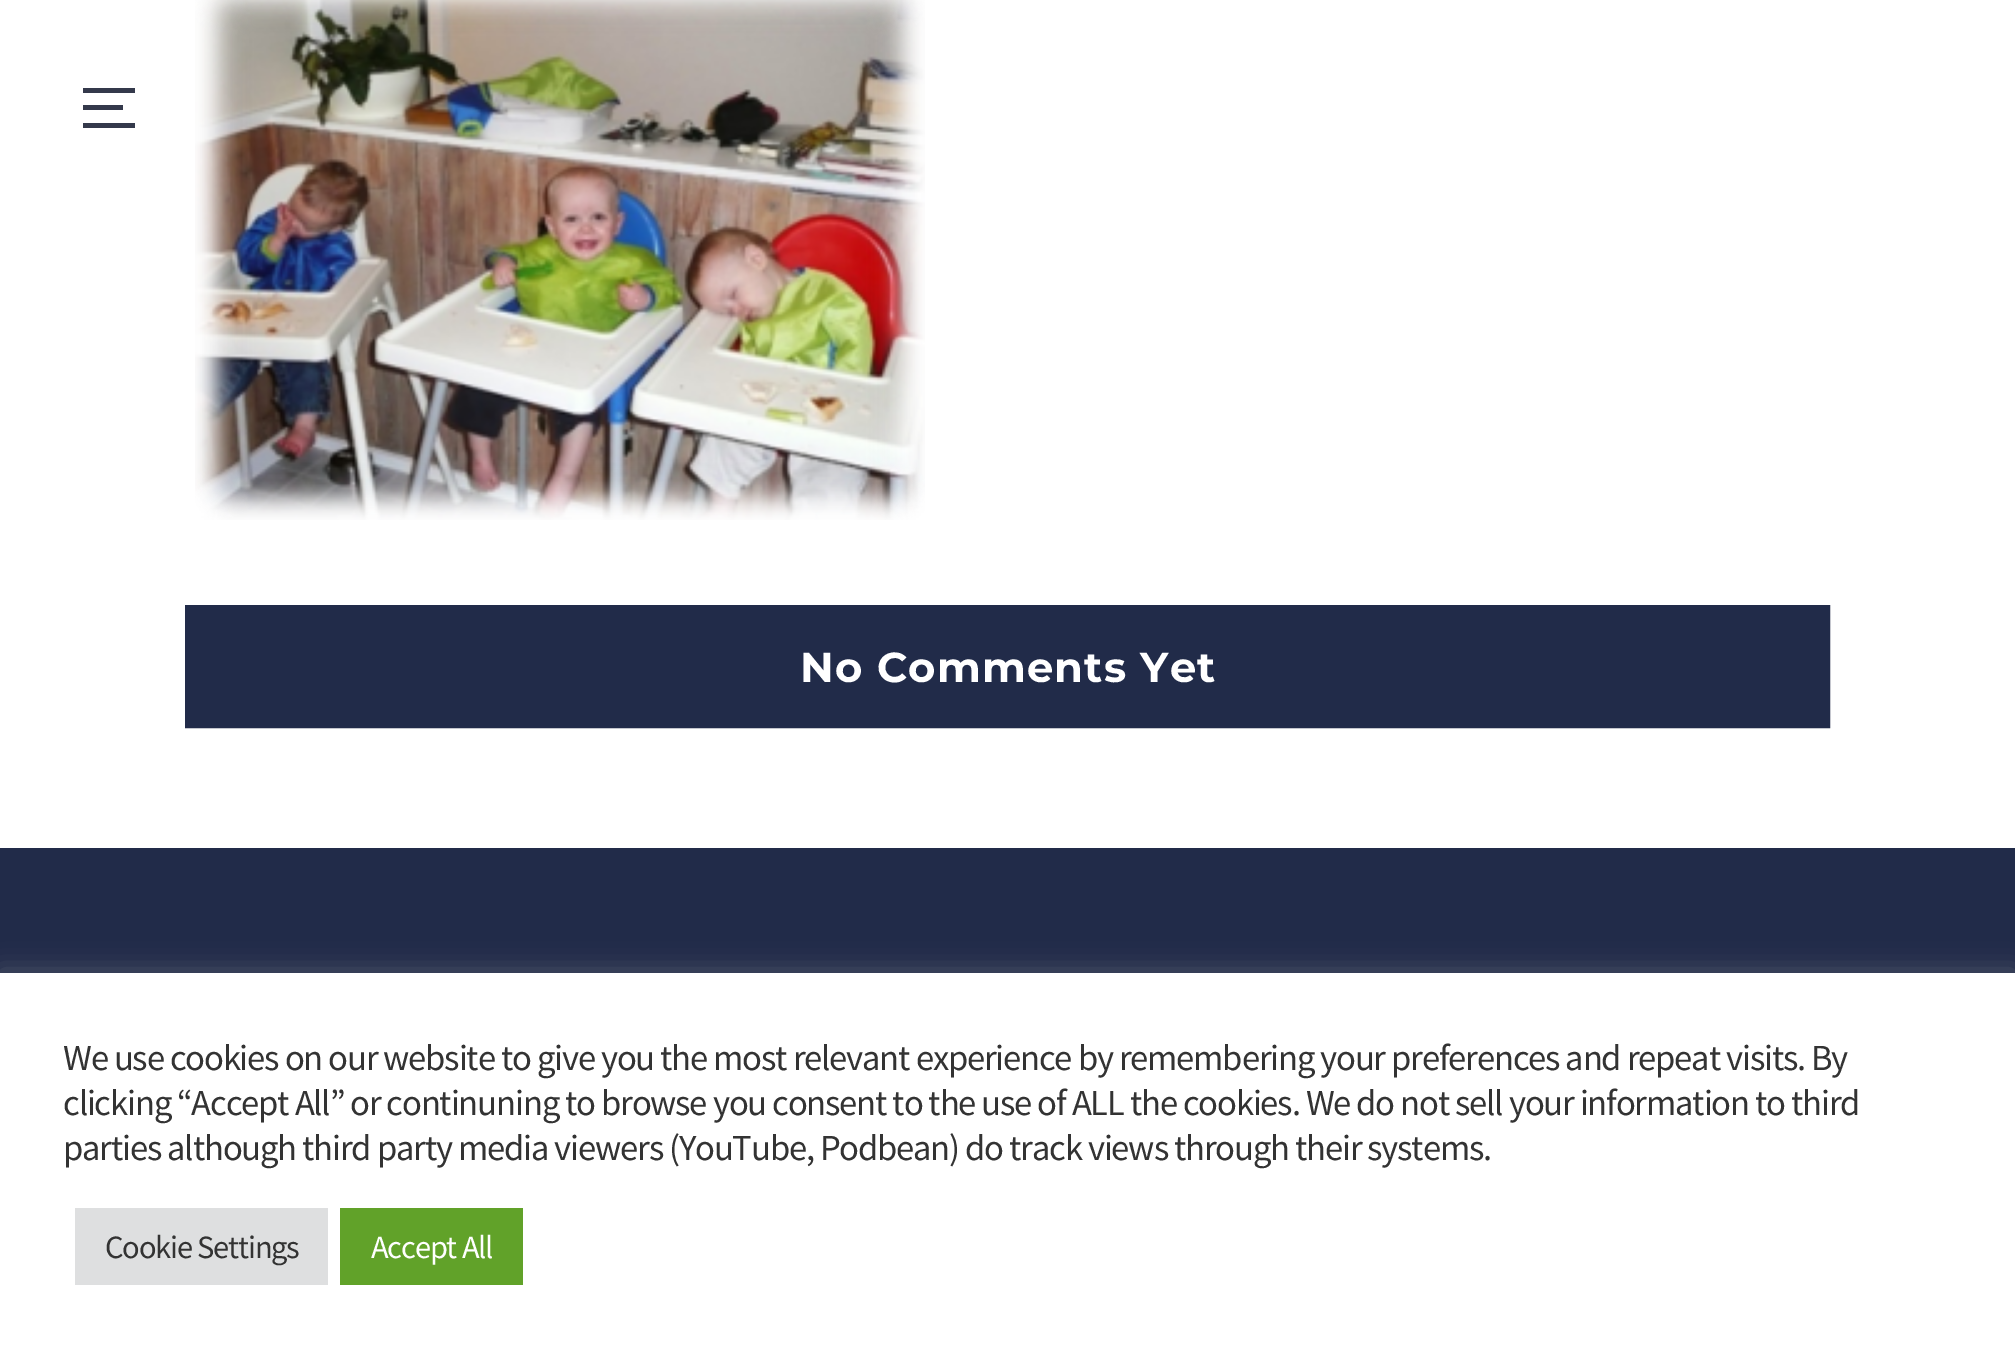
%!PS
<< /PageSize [2015 1360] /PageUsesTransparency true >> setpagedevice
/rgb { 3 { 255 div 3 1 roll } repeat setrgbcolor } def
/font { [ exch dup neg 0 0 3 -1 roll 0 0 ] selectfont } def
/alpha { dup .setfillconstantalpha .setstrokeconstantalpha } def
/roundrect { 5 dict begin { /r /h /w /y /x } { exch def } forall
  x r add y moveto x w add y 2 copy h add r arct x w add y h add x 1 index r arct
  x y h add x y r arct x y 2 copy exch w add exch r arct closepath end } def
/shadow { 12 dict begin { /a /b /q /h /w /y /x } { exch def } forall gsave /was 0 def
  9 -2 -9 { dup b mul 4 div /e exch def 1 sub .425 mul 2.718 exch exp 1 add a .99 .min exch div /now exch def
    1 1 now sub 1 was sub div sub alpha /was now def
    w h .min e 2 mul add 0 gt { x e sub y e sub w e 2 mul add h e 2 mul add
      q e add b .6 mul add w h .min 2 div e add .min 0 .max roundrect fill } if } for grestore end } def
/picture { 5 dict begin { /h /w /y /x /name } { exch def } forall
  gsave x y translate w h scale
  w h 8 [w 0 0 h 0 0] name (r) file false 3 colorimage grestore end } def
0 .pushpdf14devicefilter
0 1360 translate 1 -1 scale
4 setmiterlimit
255 255 255 rgb
0 0 2015 1360 rectfill
52 57 75 rgb
83 88 52 5 rectfill
83 105 40 5 rectfill
83 123 52 5 rectfill
(img_01.rgb) 195 0 730 520 picture
33 43 73 rgb
5 setlinewidth
187.5 607.5 1640 118 rectstroke
190 610 1635 113 rectfill
0 848 2015 125 rectfill
172 171 171 rgb
0 970 2015 388 0 12.5 0.3 shadow
255 255 255 rgb
0 973 2015 387 rectfill
222 223 224 rgb
75 1208 253 77 rectfill
97 162 41 rgb
340 1208 183 77 rectfill
/Montserrat-Thin 41.75 font
255 255 255 rgb
800 682 moveto 1.25 0 (No Comments Yet) ashow
/SourceSansPro-Regular 36.65 font
51 51 51 rgb
63 1070 moveto -1.2 0 (We use cookies on our website to give you the most relevant experience by remembering your preferences and repeat visits. By) ashow
63 1115 moveto -1.2 0 (clicking “Accept All” or continuning to browse you consent to the use of ALL the cookies. We do not sell your information to third) ashow
63 1160 moveto -1.2 0 (parties although third party media viewers \(YouTube, Podbean\) do track views through their systems.) ashow
/SourceSansPro-Regular 32.5 font
105 1258 moveto -1.2 0 (Cookie Settings) ashow
255 255 255 rgb
371 1258 moveto -1.2 0 (Accept All) ashow
.poppdf14devicefilter showpage
